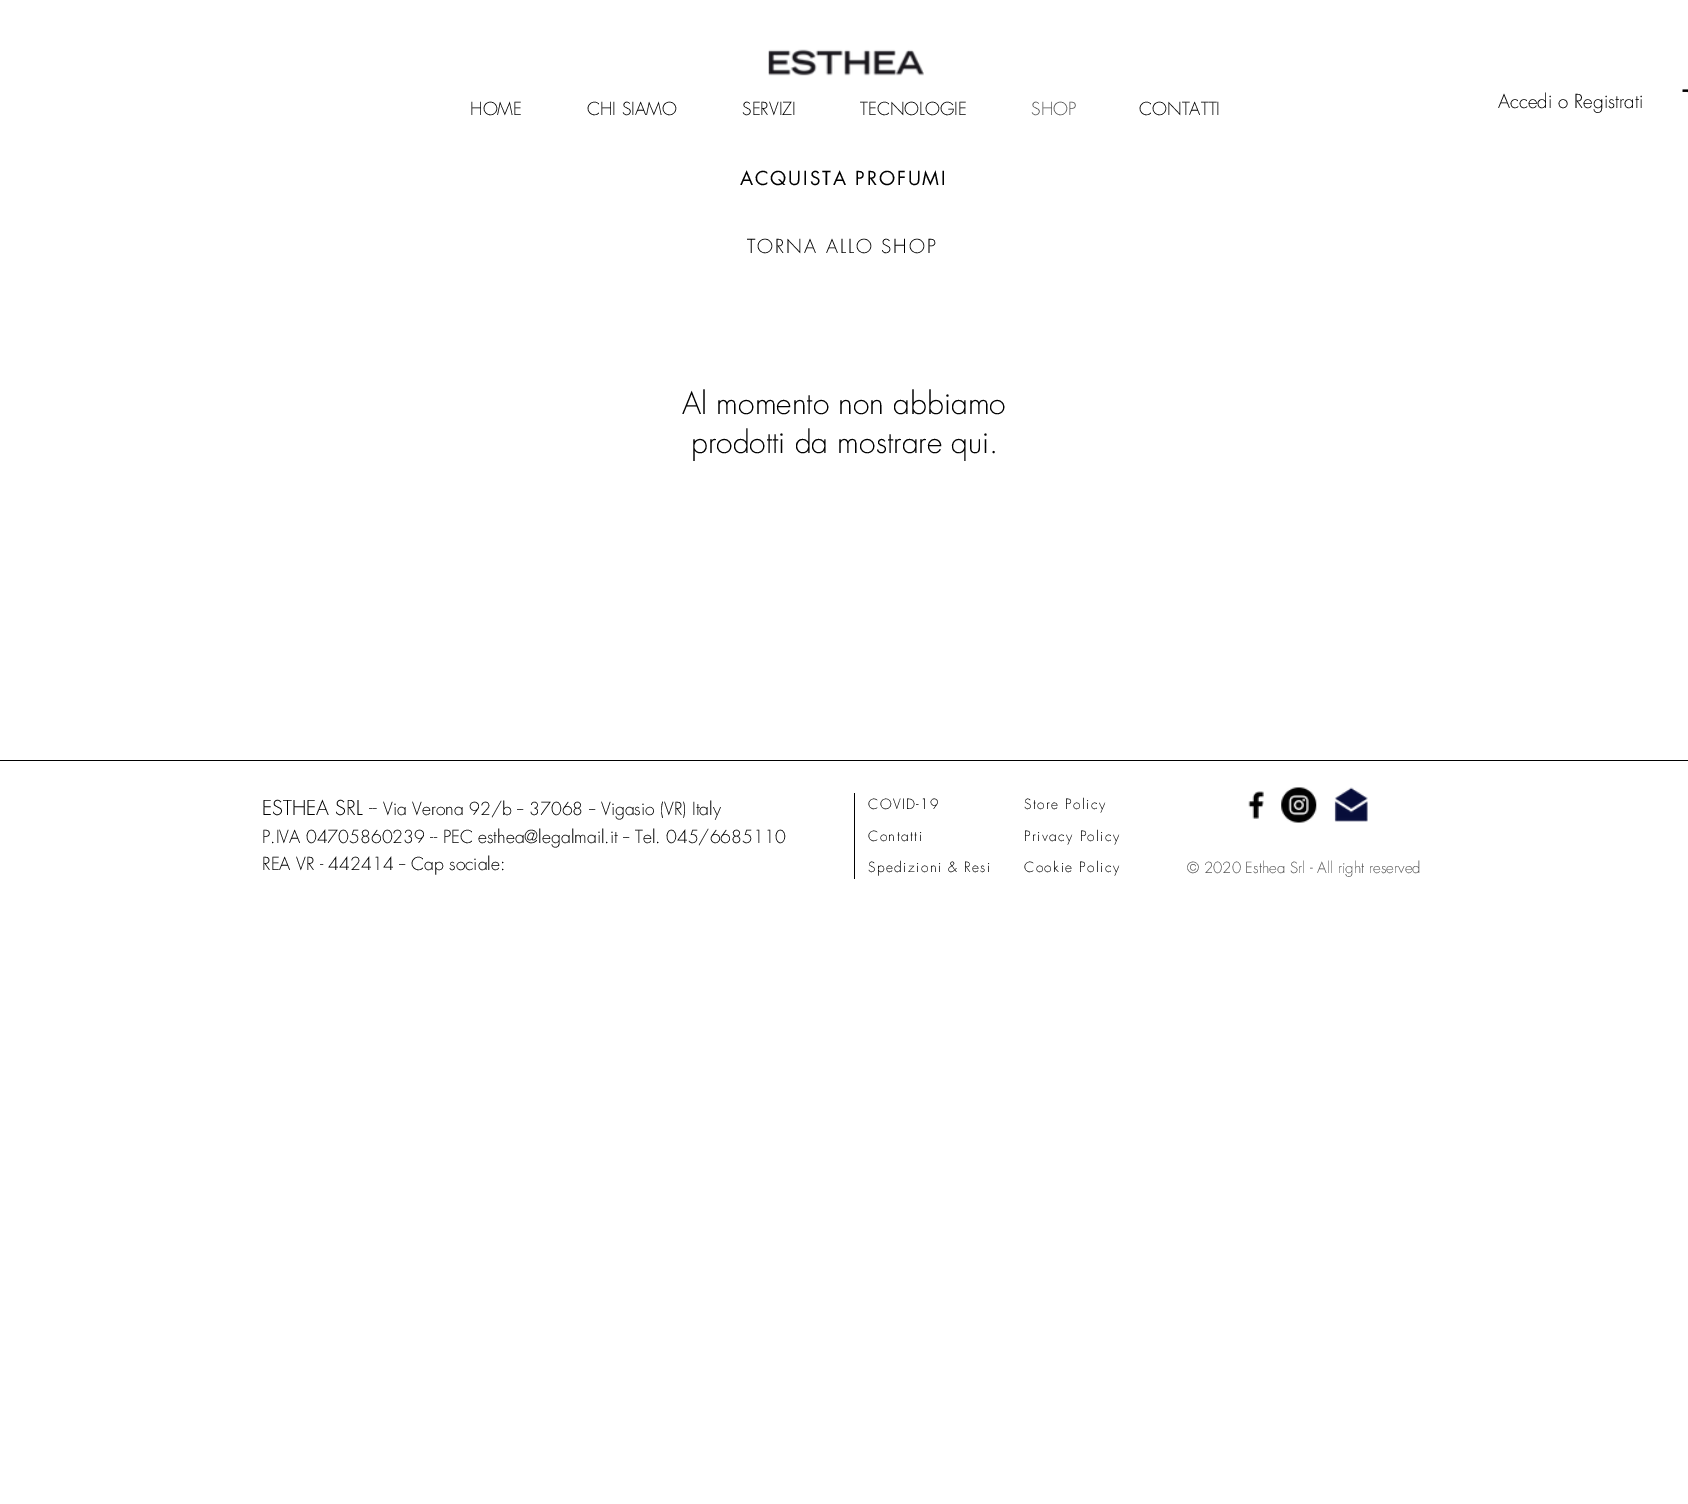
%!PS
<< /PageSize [1688 1504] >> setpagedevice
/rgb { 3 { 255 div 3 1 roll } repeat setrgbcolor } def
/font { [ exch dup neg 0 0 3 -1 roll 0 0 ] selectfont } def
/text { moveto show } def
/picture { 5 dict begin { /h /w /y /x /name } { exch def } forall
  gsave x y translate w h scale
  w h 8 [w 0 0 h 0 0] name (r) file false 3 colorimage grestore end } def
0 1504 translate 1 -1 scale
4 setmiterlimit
255 255 255 rgb
0 0 1688 1504 rectfill
(img_01.rgb) 768 49 156 27 picture
(img_02.rgb) 1682 89 6 4 picture
0 0 0 rgb
0 760 1688 1 rectfill
854 793 1 86 rectfill
(img_03.rgb) 1248 791 16 28 picture
(img_04.rgb) 1281 787 36 36 picture
(img_05.rgb) 1334 787 34 35 picture
/futura-Light 17.5 font
(HOME) 470 115 text
(CHI SIAMO) 587 115 text
(SERVIZI) 742 115 text
(TECNOLOGIE) 860 115 text
85 85 85 rgb
(SHOP) 1031 115 text
0 0 0 rgb
(CONTATTI) 1139 115 text
/futura-Light 18.75 font
(Accedi o Registrati) 1498 108 text
/futura-Regular 18.75 font
740 185 moveto 1.9 0 (ACQUISTA PROFUMI) ashow
/futura-Light 18.75 font
747 253 moveto 1.9 0 (TORNA ALLO SHOP) ashow
/futura-Light 30 font
(Al momento non abbiamo) 682 414 text
(prodotti da mostrare qui.) 691 453 text
/futura-Light 20 font
(ESTHEA SRL --) 262 815 text
/futura-Light 17.5 font
(Via Verona 92/b -- 37068 -- Vigasio \(VR\) Italy) 383 815 text
(P.IVA 04705860239 -- PEC esthea@legalmail.it -- Tel. 045/6685110) 262 843 text
(REA VR - 442414 -- Cap sociale:) 262 870 text
/futura-Light 13.75 font
868 809 moveto 1.4 0 (COVID-19) ashow
868 841 moveto 1.4 0 (Contatti) ashow
868 872 moveto 1.4 0 (Spedizioni & Resi) ashow
1024 809 moveto 1.4 0 (Store Policy) ashow
1024 841 moveto 1.4 0 (Privacy Policy) ashow
1024 872 moveto 1.4 0 (Cookie Policy) ashow
/futura-Light 15 font
85 85 85 rgb
(© 2020 Esthea Srl - All right reserved) 1187 873 text
showpage
